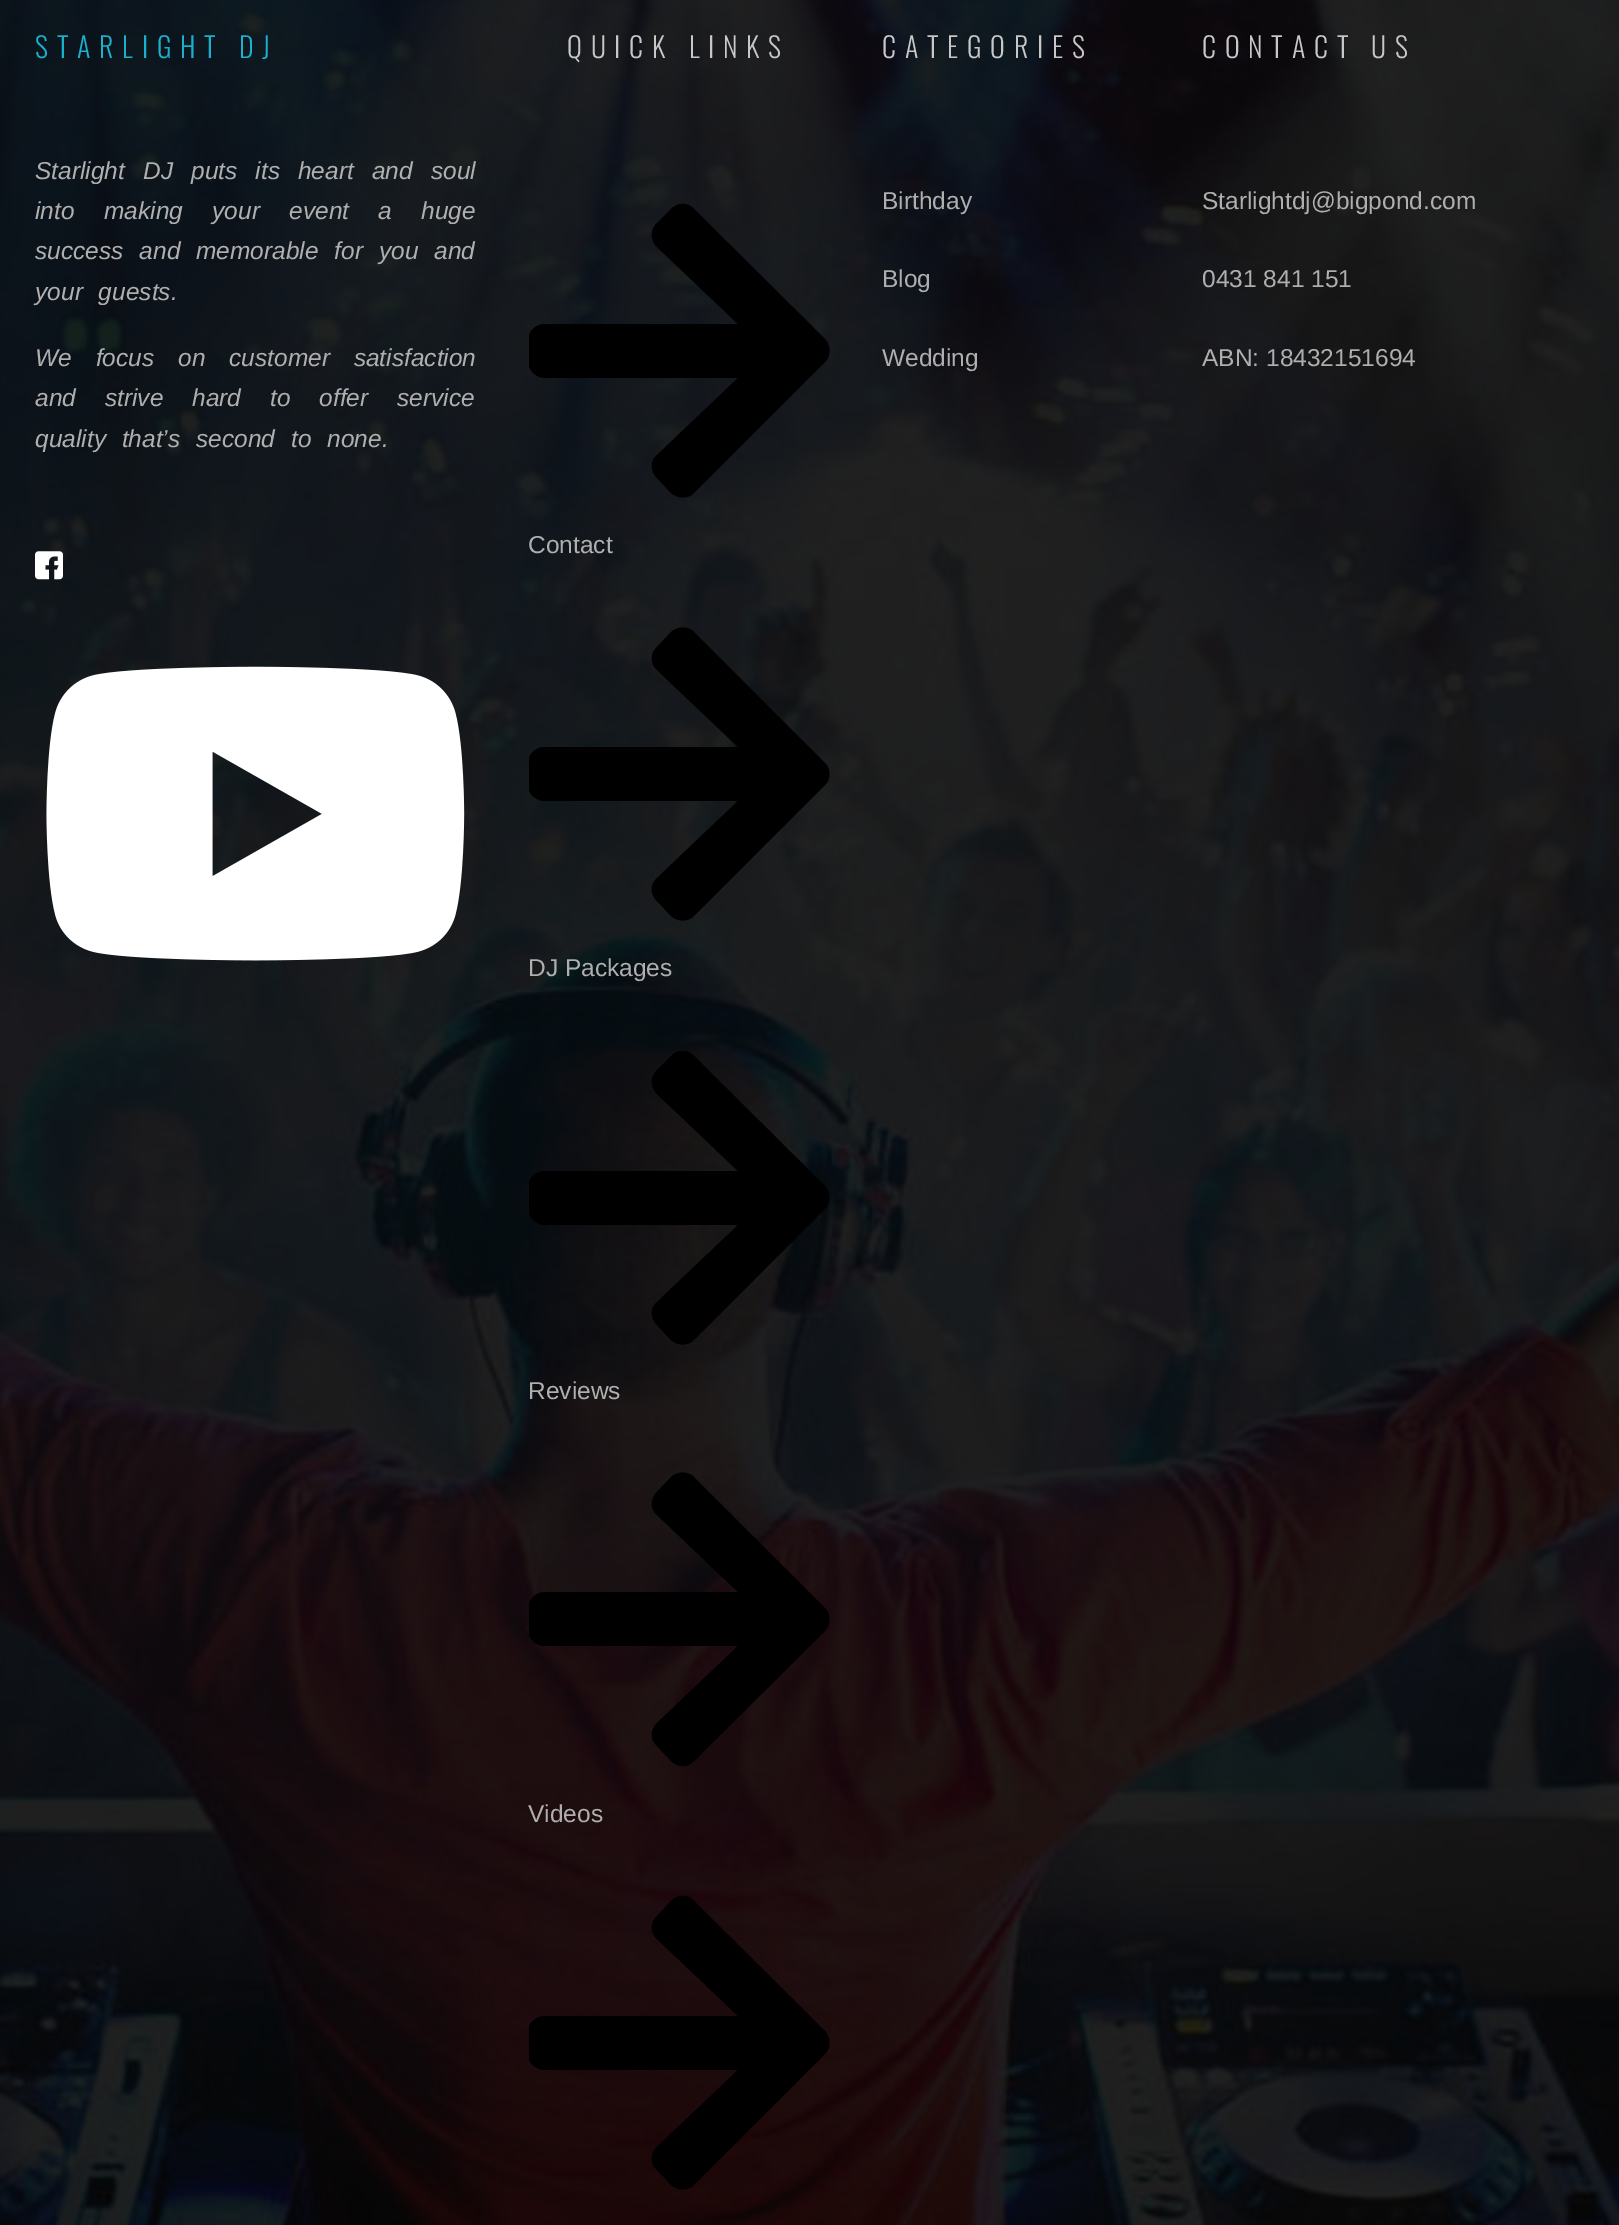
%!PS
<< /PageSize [1619 2225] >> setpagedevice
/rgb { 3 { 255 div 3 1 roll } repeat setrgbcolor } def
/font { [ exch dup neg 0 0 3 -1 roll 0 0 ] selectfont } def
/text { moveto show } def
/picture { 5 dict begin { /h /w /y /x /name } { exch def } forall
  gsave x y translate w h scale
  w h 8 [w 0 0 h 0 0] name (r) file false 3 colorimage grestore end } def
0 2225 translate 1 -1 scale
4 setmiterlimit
255 255 255 rgb
0 0 1619 2225 rectfill
(img_01.rgb) 0 0 1619 2225 picture
(img_02.rgb) 35 551 28 29 picture
(img_03.rgb) 46 666 419 295 picture
gsave
529 179 301 344 rectclip
0 0 0 rgb
657 223 moveto 14 -14 rlineto 7 -7 17 -7 23 0 rcurveto 131 130 rlineto 6 7 6 17 0 23 rcurveto -131 131 rlineto -6 6 -16 6 -23 0 rcurveto -14 -15 rlineto -7 -7 -7 -17 0 -23 rcurveto 81 -77 rlineto -193 0 rlineto -9 0 -17 -8 -17 -17 rcurveto 0 -21 rlineto 0 -9 8 -16 17 -16 rcurveto 193 0 rlineto -81 -77 rlineto -7 -7 -7 -17 0 -24 rcurveto closepath fill
grestore
gsave
529 602 301 345 rectclip
0 0 0 rgb
657 647 moveto 14 -15 rlineto 7 -6 17 -6 23 0 rcurveto 131 131 rlineto 6 6 6 16 0 22 rcurveto -131 131 rlineto -6 6 -16 6 -23 0 rcurveto -14 -15 rlineto -7 -6 -7 -17 0 -23 rcurveto 81 -77 rlineto -193 0 rlineto -9 0 -17 -7 -17 -16 rcurveto 0 -22 rlineto 0 -9 8 -16 17 -16 rcurveto 193 0 rlineto -81 -77 rlineto -7 -6 -7 -17 0 -23 rcurveto closepath fill
grestore
gsave
529 1026 301 343 rectclip
0 0 0 rgb
657 1070 moveto 14 -14 rlineto 7 -7 17 -7 23 0 rcurveto 131 130 rlineto 6 7 6 17 0 23 rcurveto -131 131 rlineto -6 6 -16 6 -23 0 rcurveto -14 -15 rlineto -7 -7 -7 -17 0 -23 rcurveto 81 -77 rlineto -193 0 rlineto -9 0 -17 -8 -17 -17 rcurveto 0 -21 rlineto 0 -9 8 -16 17 -16 rcurveto 193 0 rlineto -81 -77 rlineto -7 -7 -7 -17 0 -24 rcurveto closepath fill
grestore
gsave
529 1447 301 345 rectclip
0 0 0 rgb
657 1492 moveto 14 -15 rlineto 7 -6 17 -6 23 0 rcurveto 131 131 rlineto 6 6 6 16 0 23 rcurveto -131 130 rlineto -6 7 -16 7 -23 0 rcurveto -14 -15 rlineto -7 -6 -7 -16 0 -23 rcurveto 81 -77 rlineto -193 0 rlineto -9 0 -17 -7 -17 -16 rcurveto 0 -21 rlineto 0 -9 8 -17 17 -17 rcurveto 193 0 rlineto -81 -77 rlineto -7 -6 -7 -16 0 -23 rcurveto closepath fill
grestore
gsave
529 1871 301 345 rectclip
0 0 0 rgb
657 1916 moveto 14 -15 rlineto 7 -7 17 -7 23 0 rcurveto 131 130 rlineto 6 7 6 17 0 23 rcurveto -131 131 rlineto -6 6 -16 6 -23 0 rcurveto -14 -15 rlineto -7 -6 -7 -17 0 -23 rcurveto 81 -77 rlineto -193 0 rlineto -9 0 -17 -7 -17 -16 rcurveto 0 -22 rlineto 0 -9 8 -16 17 -16 rcurveto 193 0 rlineto -81 -77 rlineto -7 -6 -7 -17 0 -23 rcurveto closepath fill
grestore
/Oswald-Light 28 font
27 176 206 rgb
35 58 moveto 8.75 0 (STARLIGHT DJ) ashow
/LiberationSans-Italic 24.5 font
175 175 175 rgb
35 179 moveto 11.25 0 32 (Starlight DJ puts its heart and soul) widthshow
35 219 moveto 22.5 0 32 (into making your event a huge) widthshow
35 259 moveto 9 0 32 (success and memorable for you and) widthshow
35 300 moveto 9 0 32 (your guests.) widthshow
35 366 moveto 17 0 32 (We focus on customer satisfaction) widthshow
35 406 moveto 22 0 32 (and strive hard to offer service) widthshow
35 447 moveto 9 0 32 (quality that’s second to none.) widthshow
/Oswald-Light 28 font
201 200 200 rgb
567 58 moveto 8.75 0 (QUICK LINKS) ashow
/LiberationSans-Regular 24.5 font
175 175 175 rgb
(Contact) 528 553 text
(DJ Packages) 528 976 text
(Reviews) 528 1399 text
(Videos) 528 1822 text
/Oswald-Light 28 font
201 200 200 rgb
882 58 moveto 8.75 0 (CATEGORIES) ashow
/LiberationSans-Regular 24.5 font
175 175 175 rgb
(Birthday) 882 209 text
(Blog) 882 287 text
(Wedding) 882 366 text
/Oswald-Light 28 font
201 200 200 rgb
1202 58 moveto 8.75 0 (CONTACT US) ashow
/LiberationSans-Regular 24.5 font
175 175 175 rgb
(Starlightdj@bigpond.com) 1202 209 text
(0431 841 151) 1202 287 text
(ABN: 18432151694) 1202 366 text
showpage
